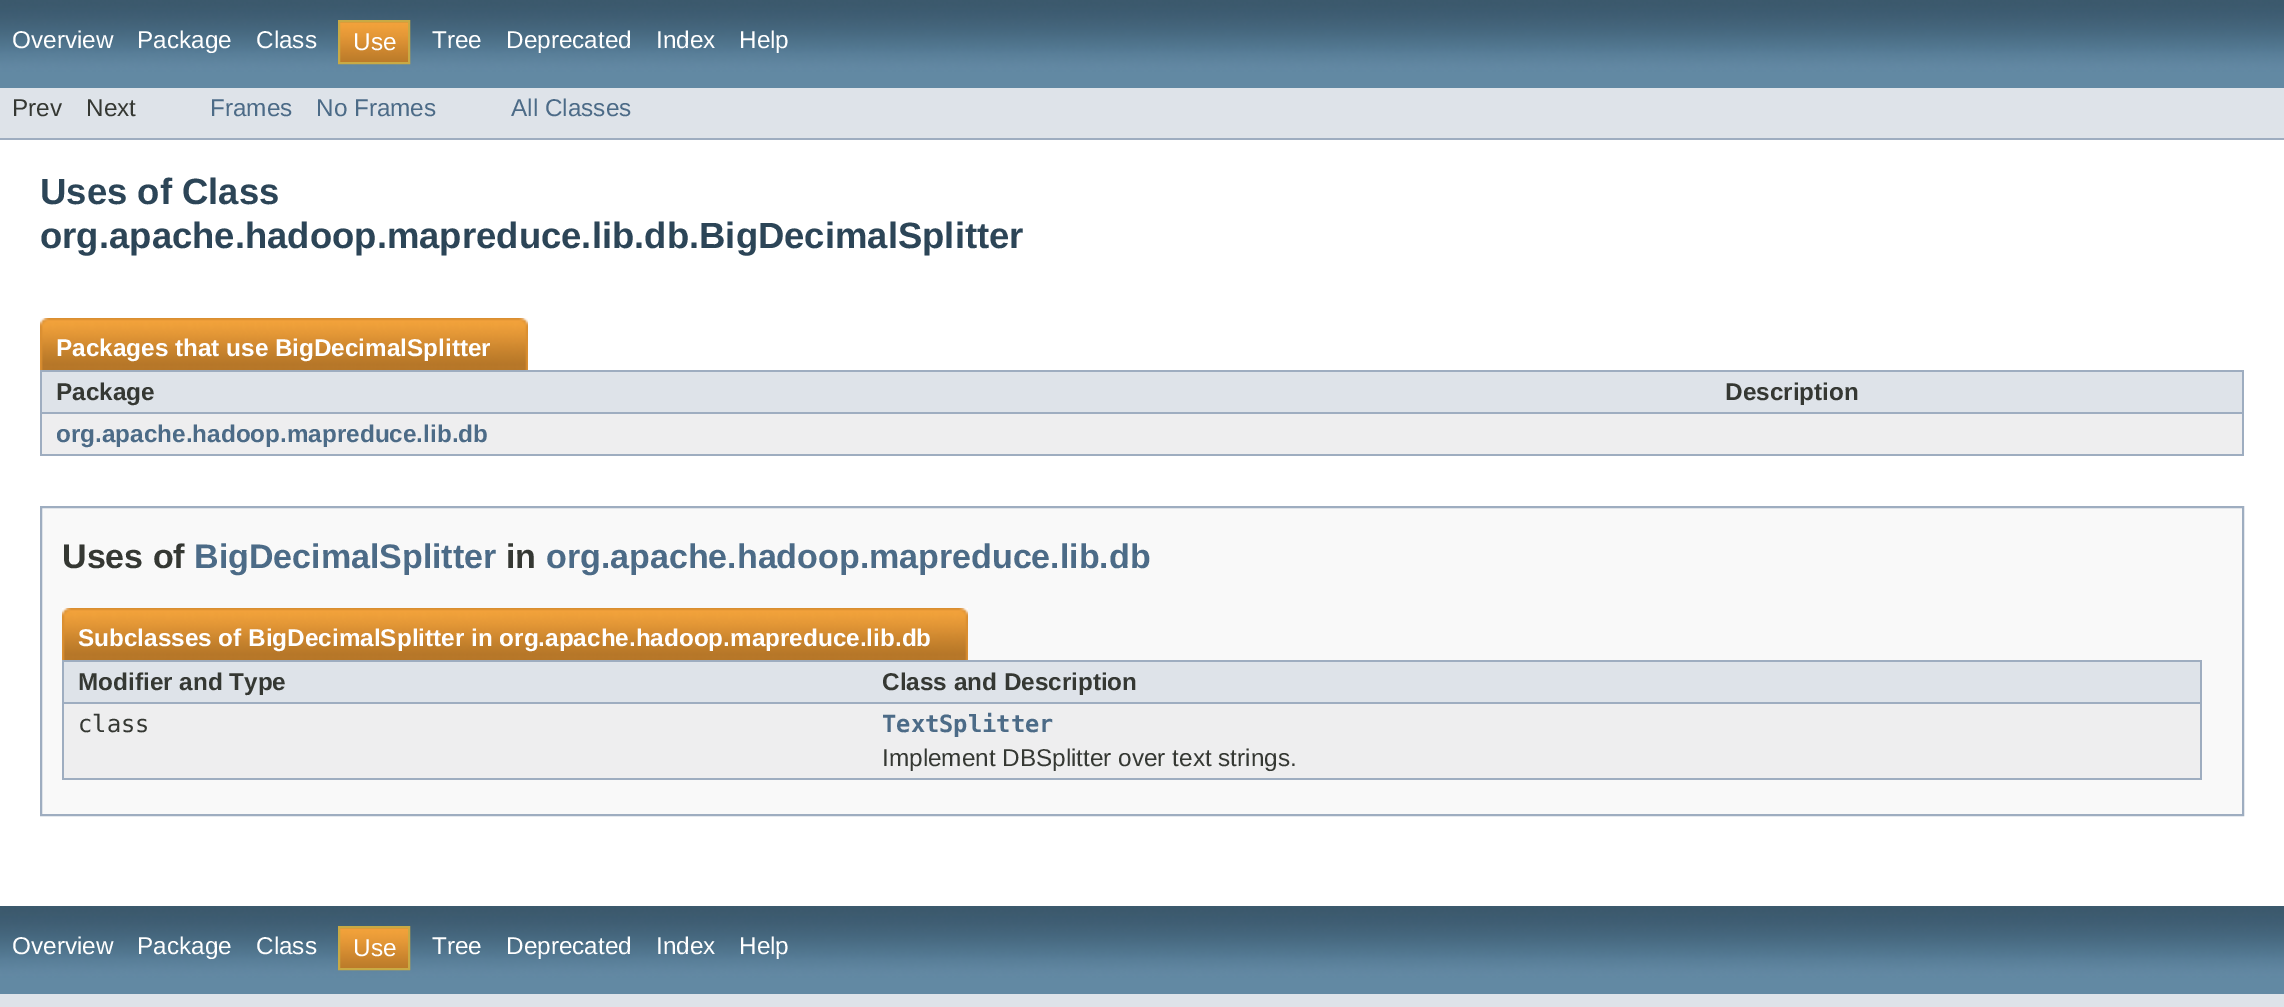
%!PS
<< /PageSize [2284 1007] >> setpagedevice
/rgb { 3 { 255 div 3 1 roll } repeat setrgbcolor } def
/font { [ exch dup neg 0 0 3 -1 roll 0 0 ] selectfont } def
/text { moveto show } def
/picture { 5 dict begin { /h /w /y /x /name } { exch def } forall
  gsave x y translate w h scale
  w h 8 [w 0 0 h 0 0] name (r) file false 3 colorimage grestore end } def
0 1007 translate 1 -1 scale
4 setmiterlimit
255 255 255 rgb
0 0 2284 1007 rectfill
(img_01.rgb) 0 0 2284 88 picture
(img_02.rgb) 340 22 68 40 picture
201 170 68 rgb
2 setlinewidth
339 21 70 42 rectstroke
222 227 233 rgb
0 88 2284 50 rectfill
158 173 192 rgb
0 138 2284 2 rectfill
40 454 2204 2 rectfill
(img_03.rgb) 40 318 452 52 picture
(img_04.rgb) 492 318 36 52 picture
222 227 233 rgb
42 372 2200 40 rectfill
158 173 192 rgb
40 370 2204 2 rectfill
40 412 1672 2 rectfill
40 370 2 84 rectfill
2242 370 2 84 rectfill
1712 412 532 2 rectfill
238 238 239 rgb
42 414 2200 40 rectfill
249 249 249 rgb
41 507 moveto 2202 0 rlineto 0 308 rlineto -2202 0 rlineto closepath gsave fill grestore
158 173 192 rgb
stroke
62 778 2140 2 rectfill
(img_05.rgb) 62 608 870 52 picture
(img_04.rgb) 932 608 36 52 picture
222 227 233 rgb
64 662 2136 40 rectfill
158 173 192 rgb
62 660 2140 2 rectfill
62 702 806 2 rectfill
62 660 2 118 rectfill
2200 660 2 118 rectfill
868 702 1334 2 rectfill
238 238 239 rgb
64 704 2136 74 rectfill
(img_01.rgb) 0 906 2284 88 picture
(img_02.rgb) 340 928 68 40 picture
201 170 68 rgb
339 927 70 42 rectstroke
222 227 233 rgb
0 994 2284 13 rectfill
/LiberationSans-Regular 24.3 font
255 255 255 rgb
(Overview) 12 48 text
(Package) 137 48 text
(Class) 256 48 text
(Use) 353 50 text
(Tree) 432 48 text
(Deprecated) 506 48 text
(Index) 656 48 text
(Help) 739 48 text
53 56 51 rgb
(Prev) 12 116 text
(Next) 86 116 text
76 107 135 rgb
(Frames) 210 116 text
(No Frames) 316 116 text
(All Classes) 511 116 text
/LiberationSans-Bold 36.5 font
44 69 87 rgb
(Uses of Class) 40 204 text
(org.apache.hadoop.mapreduce.lib.db.BigDecimalSplitter) 40 248 text
/LiberationSans-Bold 24.3 font
255 255 255 rgb
(Packages that use BigDecimalSplitter) 56 356 text
53 56 51 rgb
(Package) 56 400 text
(Description) 1725 400 text
76 107 135 rgb
(org.apache.hadoop.mapreduce.lib.db) 56 442 text
/LiberationSans-Bold 34 font
53 56 51 rgb
(Uses of) 62 568 text
76 107 135 rgb
(BigDecimalSplitter) 194 568 text
53 56 51 rgb
(in) 506 568 text
76 107 135 rgb
(org.apache.hadoop.mapreduce.lib.db) 546 568 text
/LiberationSans-Bold 24.3 font
255 255 255 rgb
(Subclasses of BigDecimalSplitter in org.apache.hadoop.mapreduce.lib.db) 78 646 text
53 56 51 rgb
(Modifier and Type) 78 690 text
(Class and Description) 882 690 text
/DejaVuSansMono-Regular 23.75 font
(class) 78 732 text
/DejaVuSansMono-Bold 23.75 font
76 107 135 rgb
(TextSplitter) 882 732 text
/LiberationSans-Regular 24.3 font
53 56 51 rgb
(Implement DBSplitter over text strings.) 882 766 text
255 255 255 rgb
(Overview) 12 954 text
(Package) 137 954 text
(Class) 256 954 text
(Use) 353 956 text
(Tree) 432 954 text
(Deprecated) 506 954 text
(Index) 656 954 text
(Help) 739 954 text
showpage
